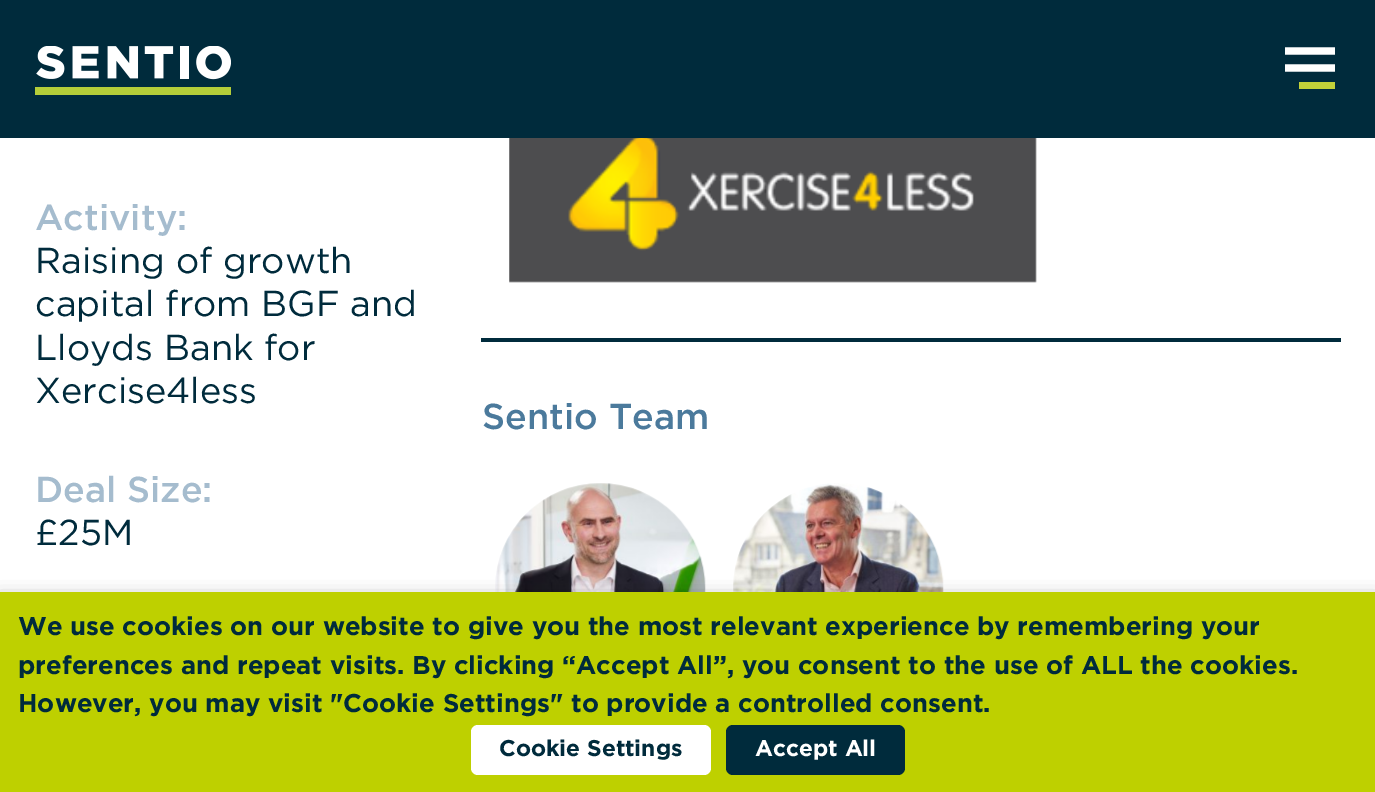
%!PS
<< /PageSize [1375 792] /PageUsesTransparency true >> setpagedevice
/rgb { 3 { 255 div 3 1 roll } repeat setrgbcolor } def
/font { [ exch dup neg 0 0 3 -1 roll 0 0 ] selectfont } def
/text { moveto show } def
/alpha { dup .setfillconstantalpha .setstrokeconstantalpha } def
/roundrect { 5 dict begin { /r /h /w /y /x } { exch def } forall
  x r add y moveto x w add y 2 copy h add r arct x w add y h add x 1 index r arct
  x y h add x y r arct x y 2 copy exch w add exch r arct closepath end } def
/shadow { 12 dict begin { /a /b /q /h /w /y /x } { exch def } forall gsave /was 0 def
  9 -2 -9 { dup b mul 4 div /e exch def 1 sub .425 mul 2.718 exch exp 1 add a .99 .min exch div /now exch def
    1 1 now sub 1 was sub div sub alpha /was now def
    w h .min e 2 mul add 0 gt { x e sub y e sub w e 2 mul add h e 2 mul add
      q e add b .6 mul add w h .min 2 div e add .min 0 .max roundrect fill } if } for grestore end } def
/picture { 5 dict begin { /h /w /y /x /name } { exch def } forall
  gsave x y translate w h scale
  w h 8 [w 0 0 h 0 0] name (r) file false 3 colorimage grestore end } def
0 .pushpdf14devicefilter
0 792 translate 1 -1 scale
4 setmiterlimit
255 255 255 rgb
0 0 1375 792 rectfill
0 43 60 rgb
0 0 1375 138 rectfill
(img_01.rgb) 35 46 196 49 picture
gsave
1285 47 50 42 rectclip
255 255 255 rgb
7.2 setlinewidth
1284.5 51 moveto 50.5 0 rlineto 1284.5 68 moveto 50.5 0 rlineto stroke
grestore
194 208 57 rgb
1299 82 36 7 rectfill
0 43 60 rgb
481 338 860 4 rectfill
(img_02.rgb) 509 138 528 145 picture
(img_03.rgb) 495 483 211 109 picture
(img_04.rgb) 733 483 211 109 picture
0 0 0 rgb
0 600 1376 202 0 9 0.5 shadow
190 208 0 rgb
0 592 1375 200 rectfill
255 255 255 rgb
471 725 240 50 7 roundrect fill
0 43 60 rgb
726 725 179 50 7 roundrect fill
/Gotham-Medium 36 font
165 188 206 rgb
(Activity:) 35 230 text
/Gotham-Regular 36 font
0 43 60 rgb
(Raising of growth) 35 273 text
(capital from BGF and) 35 316 text
(Lloyds Bank for) 35 360 text
(Xercise4less) 35 403 text
/Gotham-Medium 36 font
165 188 206 rgb
(Deal Size:) 35 502 text
/Gotham-Regular 36 font
0 43 60 rgb
(£25M) 35 545 text
/Gotham-Medium 36 font
75 122 156 rgb
(Sentio Team) 482 429 text
/Gotham-Bold 25.65 font
0 43 60 rgb
(We use cookies on our website to give you the most relevant experience by remembering your) 18 635 text
(preferences and repeat visits. By clicking “Accept All”, you consent to the use of ALL the cookies.) 18 674 text
(However, you may visit "Cookie Settings" to provide a controlled consent.) 18 712 text
/Gotham-Bold 22.75 font
(Cookie Settings) 499 756 text
255 255 255 rgb
(Accept All) 755 756 text
.poppdf14devicefilter showpage
